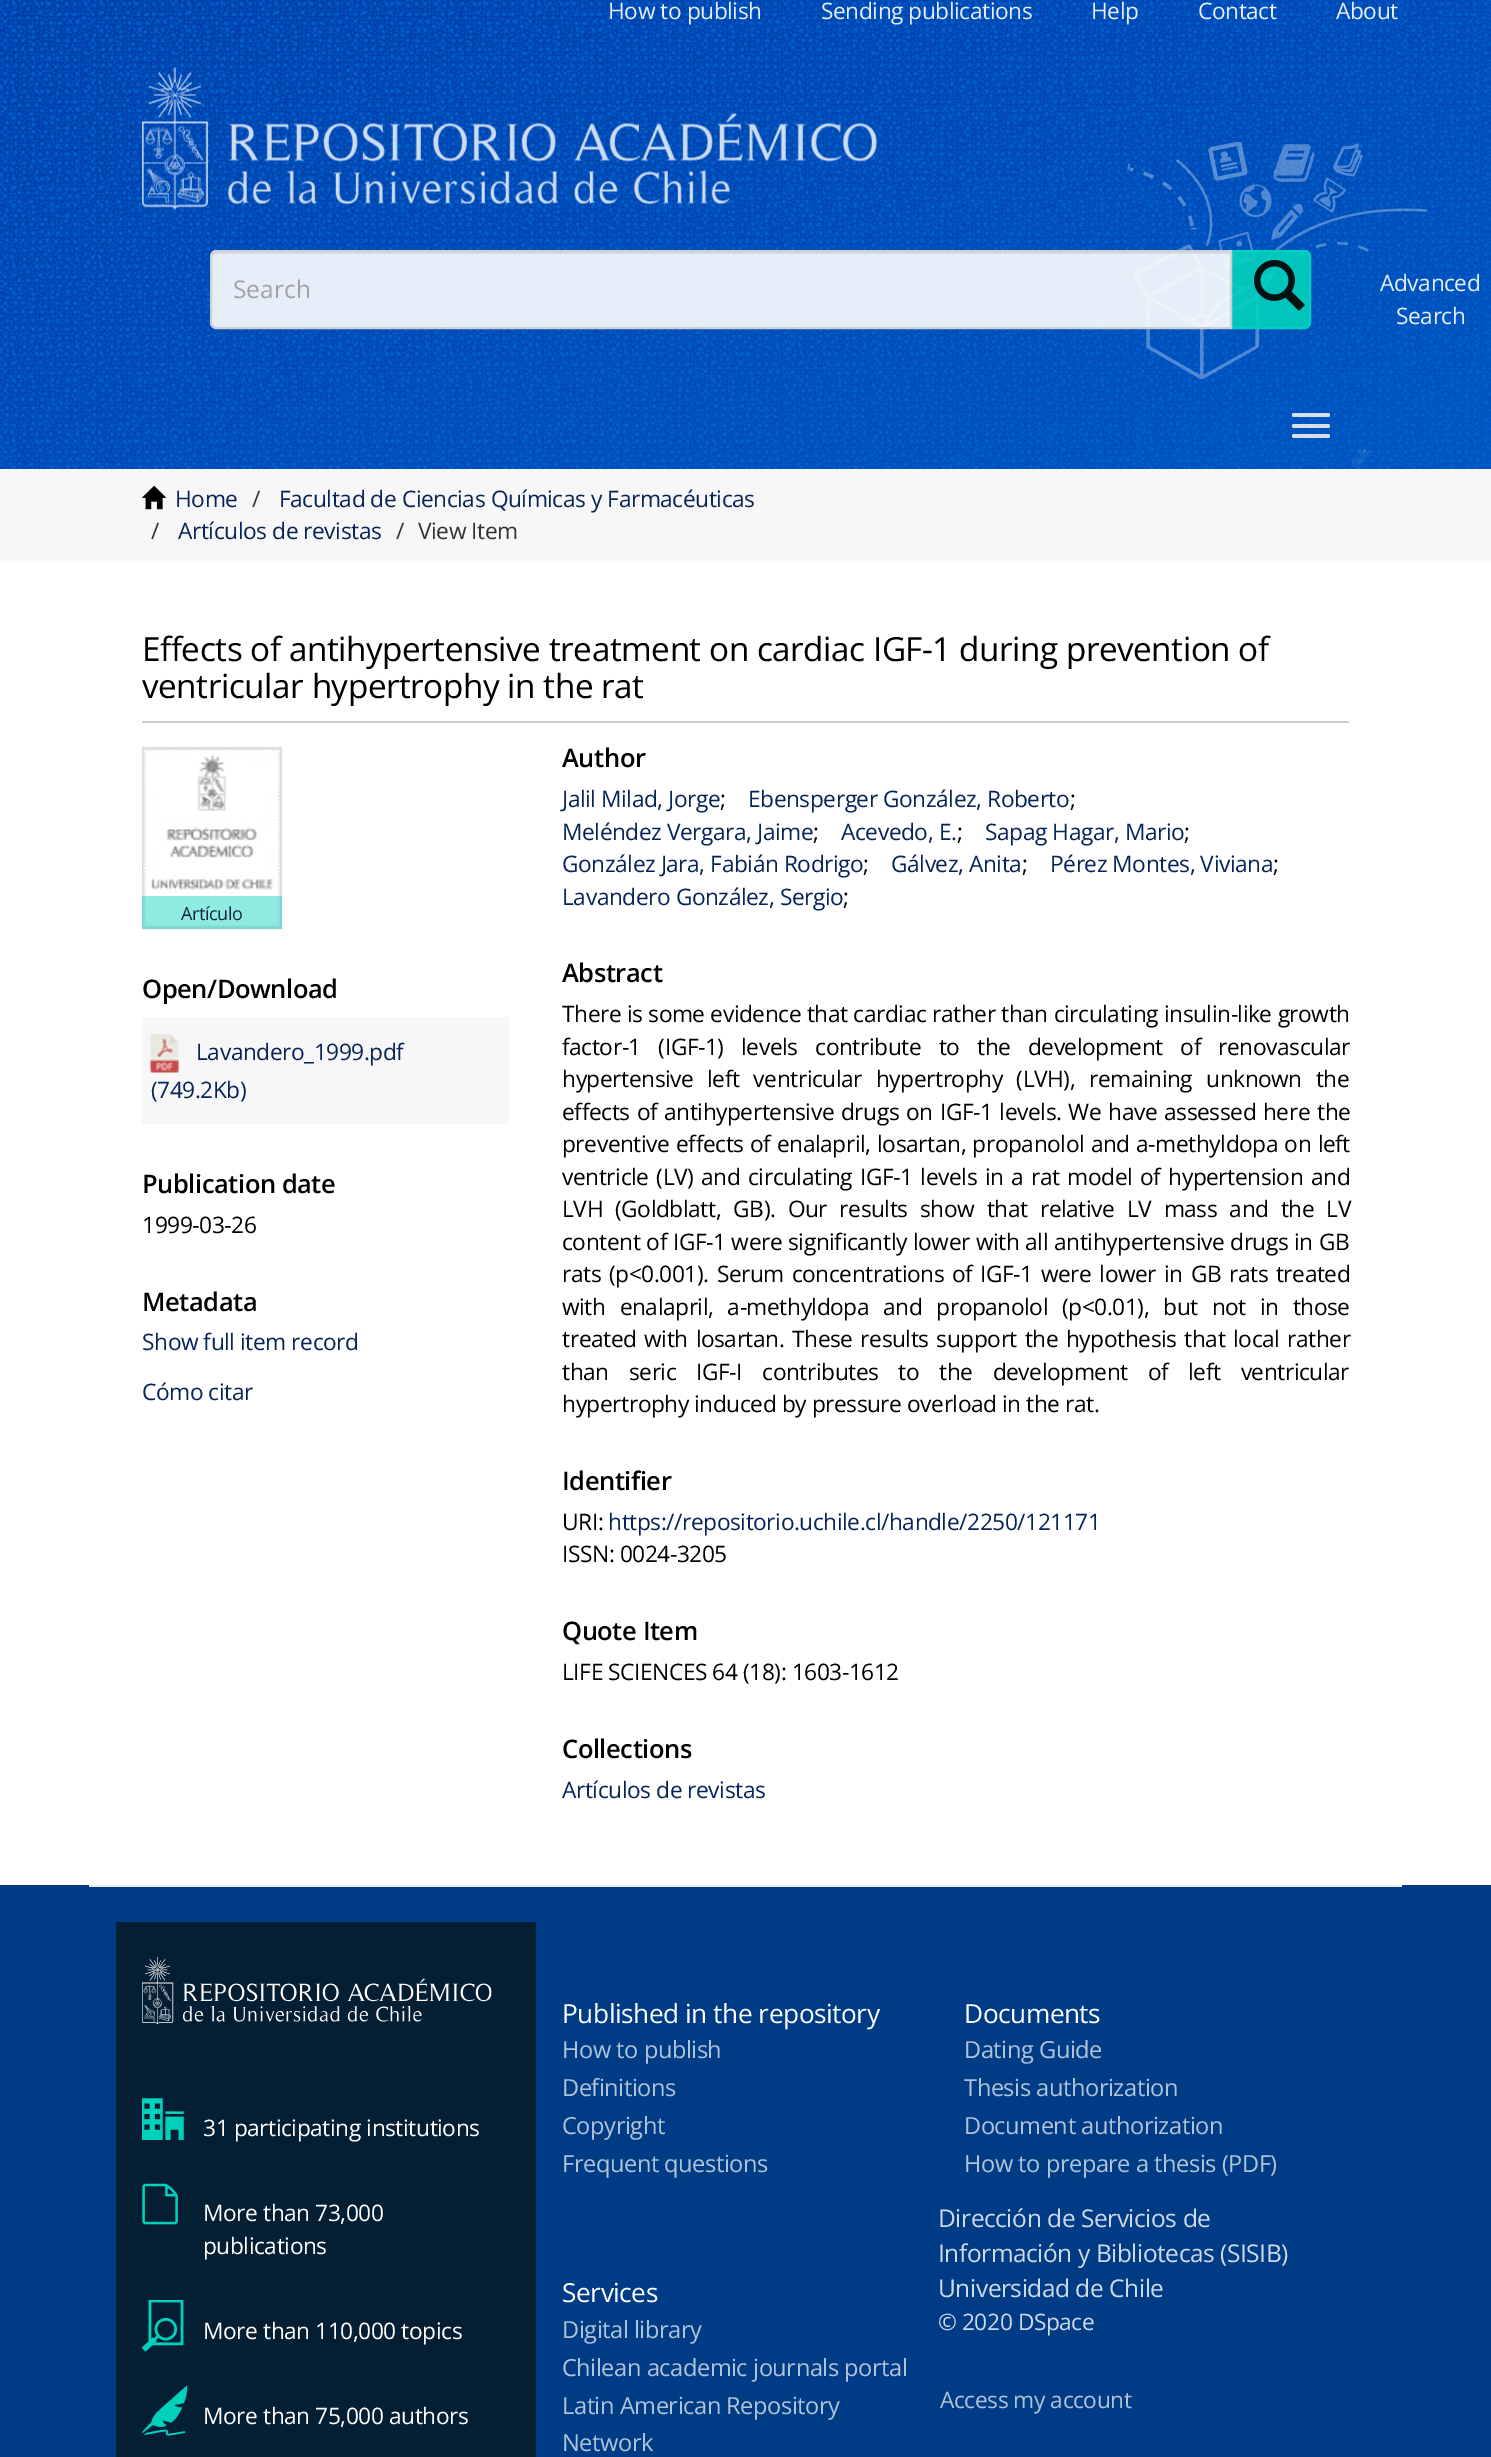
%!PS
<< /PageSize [1491 2457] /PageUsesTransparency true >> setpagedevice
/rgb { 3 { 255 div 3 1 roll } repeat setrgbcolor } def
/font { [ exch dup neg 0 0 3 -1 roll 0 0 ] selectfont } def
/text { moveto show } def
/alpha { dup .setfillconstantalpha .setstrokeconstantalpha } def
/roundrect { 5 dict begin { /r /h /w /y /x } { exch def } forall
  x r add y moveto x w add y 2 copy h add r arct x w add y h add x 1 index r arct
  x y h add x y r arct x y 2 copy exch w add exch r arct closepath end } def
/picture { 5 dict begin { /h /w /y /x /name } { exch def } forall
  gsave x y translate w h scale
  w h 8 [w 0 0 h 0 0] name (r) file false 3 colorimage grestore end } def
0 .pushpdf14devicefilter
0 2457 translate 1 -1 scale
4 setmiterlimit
255 255 255 rgb
0 0 1491 2457 rectfill
gsave 0 0 moveto 1491 0 rlineto 0 469 rlineto -1491 0 rlineto closepath clip newpath
<< /ShadingType 2 /ColorSpace /DeviceRGB /Coords [600 -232 891 671] /Extend [true true] /Function << /FunctionType 2 /Domain [0 1] /C0 [0 0.239 0.655] /C1 [0 0.329 0.745] /N 1 >> >> shfill grestore
(img_01.rgb) 0 0 1491 469 picture
(img_02.rgb) 1127 142 301 238 picture
(img_03.rgb) 142 67 735 143 picture
0.9 alpha
1 209 188 rgb
1230 250 moveto 74 0 rlineto 4 0 7 3 7 7 rcurveto 0 65 rlineto 0 4 -3 7 -7 7 rcurveto -74 0 rlineto closepath fill
2 setlinewidth
1231 251 moveto 73 0 rlineto 3.5 0 6 2.5 6 6 rcurveto 0 65 rlineto 0 3.5 -2.5 6 -6 6 rcurveto -73 0 rlineto closepath stroke
255 255 255 rgb
217 250 moveto 1015 0 rlineto 0 79 rlineto -1015 0 rlineto -4 0 -7 -3 -7 -7 rcurveto 0 -65 rlineto 0 -4 3 -7 7 -7 rcurveto closepath fill
0.07 alpha
0 0 0 rgb
217 254 moveto 1013 0 rlineto 0 -2 rlineto -1013 0 rlineto -3 0 -5 2 -5 5 rcurveto 0 2 rlineto 0 -3 2 -5 5 -5 rcurveto closepath fill
0.9 alpha
204 204 204 rgb
217 251 moveto 1014 0 rlineto 0 77 rlineto -1014 0 rlineto -3.5 0 -6 -2.5 -6 -6 rcurveto 0 -65 rlineto 0 -3.5 2.5 -6 6 -6 rcurveto closepath stroke
1 alpha
(img_04.rgb) 1254 260 51 51 picture
(img_05.rgb) 1351 449 24 20 picture
0.9 alpha
238 238 238 rgb
1292 413 38 4 2 roundrect fill
1292 424 38 4 2 roundrect fill
1292 434 38 4 2 roundrect fill
1 alpha
247 247 247 rgb
0 469 1491 93 rectfill
(img_06.rgb) 141 485 26 25 picture
204 204 204 rgb
142 721 1207 2 rectfill
221 221 221 rgb
143 748 138 180 rectstroke
(img_07.rgb) 143 748 138 180 picture
0.44 alpha
0 209 188 rgb
142 896 140 33 rectfill
1 alpha
247 247 247 rgb
142 1017 367 107 rectfill
(img_08.rgb) 149 1034 30 39 picture
0 60 133 rgb
0 1885 1491 572 rectfill
238 238 238 rgb
89 1885 1313 2 rectfill
4 30 51 rgb
116 1922 420 535 rectfill
(img_09.rgb) 142 1957 350 68 picture
(img_10.rgb) 142 2098 42 42 picture
(img_11.rgb) 142 2183 36 42 picture
(img_12.rgb) 142 2300 42 52 picture
(img_13.rgb) 142 2385 46 51 picture
/OpenSans-Regular 22.75 font
230 237 248 rgb
608 19 moveto -0.45 0 (How to publish) ashow
821 19 moveto -0.45 0 (Sending publications) ashow
1091 19 moveto -0.45 0 (Help) ashow
1198 19 moveto -0.45 0 (Contact) ashow
1336 19 moveto -0.45 0 (About) ashow
/OpenSans-Regular 24.5 font
161 161 163 rgb
(Search) 233 298 text
/OpenSans-Regular 22.75 font
230 237 248 rgb
1380 291 moveto -0.45 0 (Advanced) ashow
1396 324 moveto -0.45 0 (Search) ashow
7 36 88 rgb
175 507 moveto -0.45 0 (Home) ashow
51 51 51 rgb
252 507 moveto -0.45 0 (/) ashow
7 36 88 rgb
279 507 moveto -0.45 0 (Facultad de Ciencias Químicas y Farmacéuticas) ashow
51 51 51 rgb
151 539 moveto -0.45 0 (/) ashow
7 36 88 rgb
178 539 moveto -0.45 0 (Artículos de revistas) ashow
51 51 51 rgb
396 539 moveto -0.45 0 (/) ashow
418 539 moveto -0.45 0 (View Item) ashow
/OpenSans-Regular 33.25 font
0 0 0 rgb
142 661 moveto -0.45 0 (Effects of antihypertensive treatment on cardiac IGF-1 during prevention of) ashow
142 698 moveto -0.45 0 (ventricular hypertrophy in the rat) ashow
/OpenSans-Regular 18 font
18 37 56 rgb
181 920 moveto -0.45 0 (Artículo) ashow
/OpenSans-SemiBold 25.5 font
0 0 0 rgb
142 998 moveto -0.45 0 (Open/Download) ashow
/OpenSans-Regular 22.75 font
7 36 88 rgb
196 1060 moveto -0.45 0 (Lavandero_1999.pdf) ashow
151 1098 moveto -0.45 0 (\(749.2Kb\)) ashow
/OpenSans-SemiBold 25.5 font
0 0 0 rgb
142 1193 moveto -0.45 0 (Publication date) ashow
/OpenSans-Regular 22.75 font
142 1233 moveto -0.45 0 (1999-03-26) ashow
/OpenSans-SemiBold 25.5 font
142 1311 moveto -0.45 0 (Metadata) ashow
/OpenSans-Regular 22.75 font
7 36 88 rgb
142 1350 moveto -0.45 0 (Show full item record) ashow
142 1400 moveto -0.45 0 (Cómo citar) ashow
/OpenSans-SemiBold 25.5 font
0 0 0 rgb
562 767 moveto -0.45 0 (Author) ashow
/OpenSans-Regular 22.75 font
7 36 88 rgb
562 807 moveto -0.45 0 (Jalil Milad, Jorge) ashow
0 0 0 rgb
720 807 moveto -0.45 0 (;) ashow
7 36 88 rgb
748 807 moveto -0.45 0 (Ebensperger González, Roberto) ashow
0 0 0 rgb
1070 807 moveto -0.45 0 (;) ashow
7 36 88 rgb
562 840 moveto -0.45 0 (Meléndez Vergara, Jaime) ashow
0 0 0 rgb
813 840 moveto -0.45 0 (;) ashow
7 36 88 rgb
841 840 moveto -0.45 0 (Acevedo, E.) ashow
0 0 0 rgb
957 840 moveto -0.45 0 (;) ashow
7 36 88 rgb
985 840 moveto -0.45 0 (Sapag Hagar, Mario) ashow
0 0 0 rgb
1184 840 moveto -0.45 0 (;) ashow
7 36 88 rgb
562 872 moveto -0.45 0 (González Jara, Fabián Rodrigo) ashow
0 0 0 rgb
863 872 moveto -0.45 0 (;) ashow
7 36 88 rgb
891 872 moveto -0.45 0 (Gálvez, Anita) ashow
0 0 0 rgb
1022 872 moveto -0.45 0 (;) ashow
7 36 88 rgb
1050 872 moveto -0.45 0 (Pérez Montes, Viviana) ashow
0 0 0 rgb
1273 872 moveto -0.45 0 (;) ashow
7 36 88 rgb
562 905 moveto -0.45 0 (Lavandero González, Sergio) ashow
0 0 0 rgb
843 905 moveto -0.45 0 (;) ashow
/OpenSans-SemiBold 25.5 font
562 982 moveto -0.45 0 (Abstract) ashow
/OpenSans-Regular 22.75 font
562 1022 moveto 0.25 0 32 -0.45 0 (There is some evidence that cardiac rather than circulating insulin-like growth) awidthshow
562 1055 moveto 12 0 32 -0.45 0 (factor-1 \(IGF-1\) levels contribute to the development of renovascular) awidthshow
562 1087 moveto 8.25 0 32 -0.45 0 (hypertensive left ventricular hypertrophy \(LVH\), remaining unknown the) awidthshow
562 1120 moveto 1.5 0 32 -0.45 0 (effects of antihypertensive drugs on IGF-1 levels. We have assessed here the) awidthshow
562 1152 moveto 1 0 32 -0.45 0 (preventive effects of enalapril, losartan, propanolol and a-methyldopa on left) awidthshow
562 1185 moveto 2.25 0 32 -0.45 0 (ventricle \(LV\) and circulating IGF-1 levels in a rat model of hypertension and) awidthshow
562 1217 moveto 6.75 0 32 -0.45 0 (LVH \(Goldblatt, GB\). Our results show that relative LV mass and the LV) awidthshow
562 1250 moveto 0.5 0 32 -0.45 0 (content of IGF-1 were significantly lower with all antihypertensive drugs in GB) awidthshow
562 1282 moveto 2.4 0 32 -0.45 0 (rats \(p<0.001\). Serum concentrations of IGF-1 were lower in GB rats treated) awidthshow
562 1315 moveto 8.5 0 32 -0.45 0 (with enalapril, a-methyldopa and propanolol \(p<0.01\), but not in those) awidthshow
562 1347 moveto 2.25 0 32 -0.45 0 (treated with losartan. These results support the hypothesis that local rather) awidthshow
562 1380 moveto 14.5 0 32 -0.45 0 (than seric IGF-I contributes to the development of left ventricular) awidthshow
562 1412 moveto -0.45 0 (hypertrophy induced by pressure overload in the rat.) ashow
/OpenSans-SemiBold 25.5 font
562 1490 moveto -0.45 0 (Identifier) ashow
/OpenSans-Regular 22.75 font
562 1530 moveto -0.45 0 (URI:) ashow
7 36 88 rgb
608 1530 moveto -0.45 0 (https://repositorio.uchile.cl/handle/2250/121171) ashow
0 0 0 rgb
562 1562 moveto -0.45 0 (ISSN: 0024-3205) ashow
/OpenSans-SemiBold 25.5 font
562 1640 moveto -0.45 0 (Quote Item) ashow
/OpenSans-Regular 22.75 font
562 1680 moveto -0.45 0 (LIFE SCIENCES 64 \(18\): 1603-1612) ashow
/OpenSans-SemiBold 25.5 font
562 1758 moveto -0.45 0 (Collections) ashow
/OpenSans-Regular 22.75 font
7 36 88 rgb
562 1798 moveto -0.45 0 (Artículos de revistas) ashow
255 255 255 rgb
203 2136 moveto -0.45 0 (31 participating institutions) ashow
203 2221 moveto -0.45 0 (More than 73,000) ashow
203 2254 moveto -0.45 0 (publications) ashow
203 2339 moveto -0.45 0 (More than 110,000 topics) ashow
203 2424 moveto -0.45 0 (More than 75,000 authors) ashow
/OpenSans-Regular 26.25 font
562 2023 moveto -0.45 0 (Published in the repository) ashow
/OpenSans-Regular 23.6 font
176 195 217 rgb
562 2058 moveto -0.45 0 (How to publish) ashow
562 2096 moveto -0.45 0 (Definitions) ashow
562 2134 moveto -0.45 0 (Copyright) ashow
562 2172 moveto -0.45 0 (Frequent questions) ashow
/OpenSans-Regular 26.25 font
255 255 255 rgb
964 2023 moveto -0.45 0 (Documents) ashow
/OpenSans-Regular 23.6 font
176 195 217 rgb
964 2058 moveto -0.45 0 (Dating Guide) ashow
964 2096 moveto -0.45 0 (Thesis authorization) ashow
964 2134 moveto -0.45 0 (Document authorization) ashow
964 2172 moveto -0.45 0 (How to prepare a thesis \(PDF\)) ashow
/OpenSans-Regular 26.25 font
255 255 255 rgb
562 2302 moveto -0.45 0 (Services) ashow
/OpenSans-Regular 23.6 font
176 195 217 rgb
562 2338 moveto -0.45 0 (Digital library) ashow
562 2376 moveto -0.45 0 (Chilean academic journals portal) ashow
562 2414 moveto -0.45 0 (Latin American Repository) ashow
562 2451 moveto -0.45 0 (Network) ashow
/OpenSans-Regular 24.5 font
207 218 232 rgb
938 2227 moveto -0.45 0 (Dirección de Servicios de) ashow
938 2262 moveto -0.45 0 (Información y Bibliotecas \(SISIB\)) ashow
938 2297 moveto -0.45 0 (Universidad de Chile) ashow
/OpenSans-Regular 22.75 font
938 2330 moveto -0.45 0 (© 2020 DSpace) ashow
176 195 217 rgb
940 2408 moveto -0.45 0 (Access my account) ashow
.poppdf14devicefilter showpage
